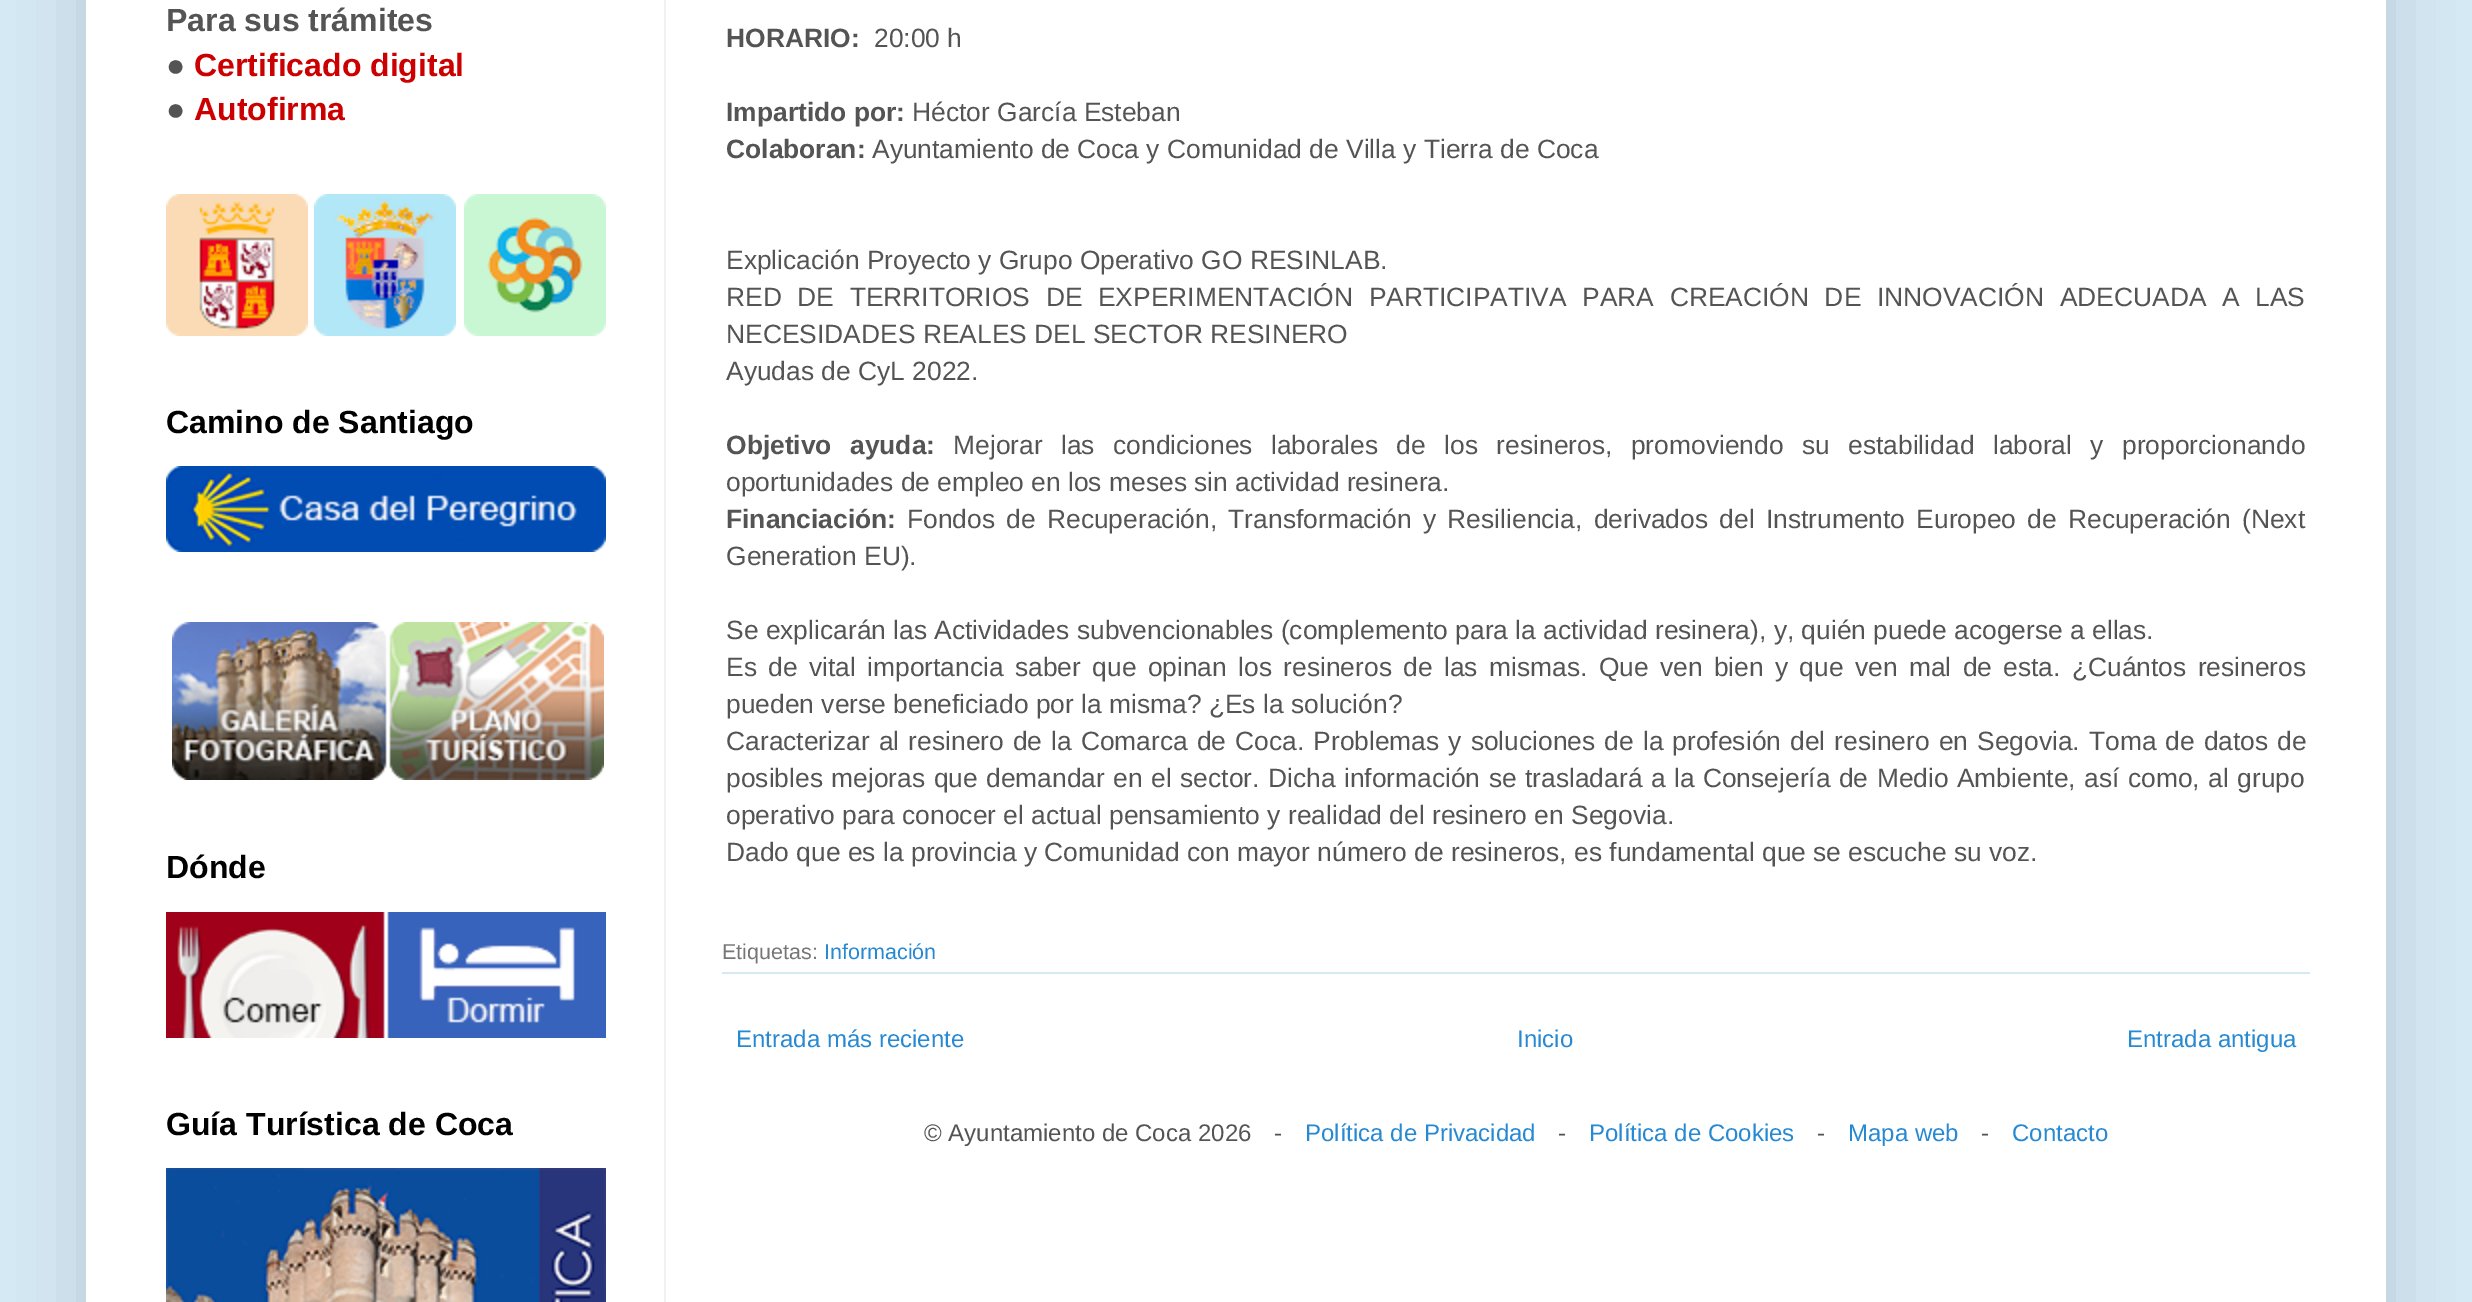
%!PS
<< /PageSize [2472 1302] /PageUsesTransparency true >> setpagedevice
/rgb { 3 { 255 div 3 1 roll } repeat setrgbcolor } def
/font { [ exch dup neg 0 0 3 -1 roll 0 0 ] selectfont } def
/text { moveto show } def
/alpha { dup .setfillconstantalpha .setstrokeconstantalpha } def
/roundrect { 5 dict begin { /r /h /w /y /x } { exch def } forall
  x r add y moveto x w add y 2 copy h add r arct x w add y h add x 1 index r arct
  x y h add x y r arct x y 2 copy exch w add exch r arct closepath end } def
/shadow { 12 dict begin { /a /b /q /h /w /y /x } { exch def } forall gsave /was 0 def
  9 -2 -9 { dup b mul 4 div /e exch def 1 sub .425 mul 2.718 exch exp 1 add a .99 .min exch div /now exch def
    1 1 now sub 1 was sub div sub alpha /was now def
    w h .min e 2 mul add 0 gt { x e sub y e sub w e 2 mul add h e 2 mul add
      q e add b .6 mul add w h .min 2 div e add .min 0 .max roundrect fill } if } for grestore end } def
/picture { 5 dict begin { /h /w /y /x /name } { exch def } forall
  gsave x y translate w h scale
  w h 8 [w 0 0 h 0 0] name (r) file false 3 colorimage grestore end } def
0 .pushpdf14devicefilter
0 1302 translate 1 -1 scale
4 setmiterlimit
214 234 246 rgb
0 0 2472 1302 rectfill
0 0 0 rgb
86 -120 2300 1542 0 40 0.15 shadow
255 255 255 rgb
86 0 2300 1302 rectfill
241 241 241 rgb
664 0 2 1302 rectfill
(img_01.rgb) 166 194 142 142 picture
(img_02.rgb) 314 194 142 142 picture
(img_03.rgb) 464 194 142 142 picture
(img_04.rgb) 166 466 440 86 picture
(img_05.rgb) 172 622 215 158 picture
(img_06.rgb) 389 622 215 158 picture
(img_07.rgb) 166 912 219 126 picture
(img_08.rgb) 387 912 219 126 picture
(img_09.rgb) 166 1168 440 134 picture
214 234 246 rgb
722 972 1588 2 rectfill
/LiberationSans-Bold 32 font
84 84 84 rgb
(Para sus trámites) 166 31 text
(●) 166 76 text
204 0 0 rgb
(Certificado digital) 194 76 text
84 84 84 rgb
(●) 166 120 text
204 0 0 rgb
(Autofirma) 194 120 text
0 0 0 rgb
(Camino de Santiago) 166 433 text
(Dónde) 166 878 text
(Guía Turística de Coca) 166 1135 text
/LiberationSans-Bold 26.4 font
84 84 84 rgb
(HORARIO:) 726 47 text
/LiberationSans-Regular 26.4 font
(20:00 h) 874 47 text
/LiberationSans-Bold 26.4 font
(Impartido por:) 726 121 text
/LiberationSans-Regular 26.4 font
(Héctor García Esteban) 912 121 text
/LiberationSans-Bold 26.4 font
(Colaboran:) 726 158 text
/LiberationSans-Regular 26.4 font
(Ayuntamiento de Coca y Comunidad de Villa y Tierra de Coca) 872 158 text
(Explicación Proyecto y Grupo Operativo GO RESINLAB.) 726 269 text
726 306 moveto 8.25 0 32 (RED DE TERRITORIOS DE EXPERIMENTACIÓN PARTICIPATIVA PARA CREACIÓN DE INNOVACIÓN ADECUADA A LAS) widthshow
(NECESIDADES REALES DEL SECTOR RESINERO) 726 343 text
(Ayudas de CyL 2022.) 726 380 text
/LiberationSans-Bold 26.4 font
726 454 moveto 11 0 32 (Objetivo ayuda:) widthshow
/LiberationSans-Regular 26.4 font
953 454 moveto 11.1 0 32 (Mejorar las condiciones laborales de los resineros, promoviendo su estabilidad laboral y proporcionando) widthshow
(oportunidades de empleo en los meses sin actividad resinera.) 726 491 text
/LiberationSans-Bold 26.4 font
(Financiación:) 726 528 text
/LiberationSans-Regular 26.4 font
907 528 moveto 3.9 0 32 (Fondos de Recuperación, Transformación y Resiliencia, derivados del Instrumento Europeo de Recuperación \(Next) widthshow
(Generation EU\).) 726 565 text
(Se explicarán las Actividades subvencionables \(complemento para la actividad resinera\), y, quién puede acogerse a ellas.) 726 639 text
726 676 moveto 4 0 32 (Es de vital importancia saber que opinan los resineros de las mismas. Que ven bien y que ven mal de esta. ¿Cuántos resineros) widthshow
(pueden verse beneficiado por la misma? ¿Es la solución?) 726 713 text
726 750 moveto 1.7 0 32 (Caracterizar al resinero de la Comarca de Coca. Problemas y soluciones de la profesión del resinero en Segovia. Toma de datos de) widthshow
726 787 moveto 1.1 0 32 (posibles mejoras que demandar en el sector. Dicha información se trasladará a la Consejería de Medio Ambiente, así como, al grupo) widthshow
(operativo para conocer el actual pensamiento y realidad del resinero en Segovia.) 726 824 text
(Dado que es la provincia y Comunidad con mayor número de resineros, es fundamental que se escuche su voz.) 726 861 text
/LiberationSans-Regular 21.5 font
118 118 118 rgb
(Etiquetas:) 722 959 text
38 137 210 rgb
(Información) 824 959 text
/LiberationSans-Regular 24 font
(Entrada más reciente) 736 1047 text
(Inicio) 1517 1047 text
(Entrada antigua) 2127 1047 text
84 84 84 rgb
(© Ayuntamiento de Coca 2026) 924 1141 text
(-) 1274 1141 text
38 137 210 rgb
(Política de Privacidad) 1305 1141 text
84 84 84 rgb
(-) 1558 1141 text
38 137 210 rgb
(Política de Cookies) 1589 1141 text
84 84 84 rgb
(-) 1817 1141 text
38 137 210 rgb
(Mapa web) 1848 1141 text
84 84 84 rgb
(-) 1981 1141 text
38 137 210 rgb
(Contacto) 2012 1141 text
.poppdf14devicefilter showpage
